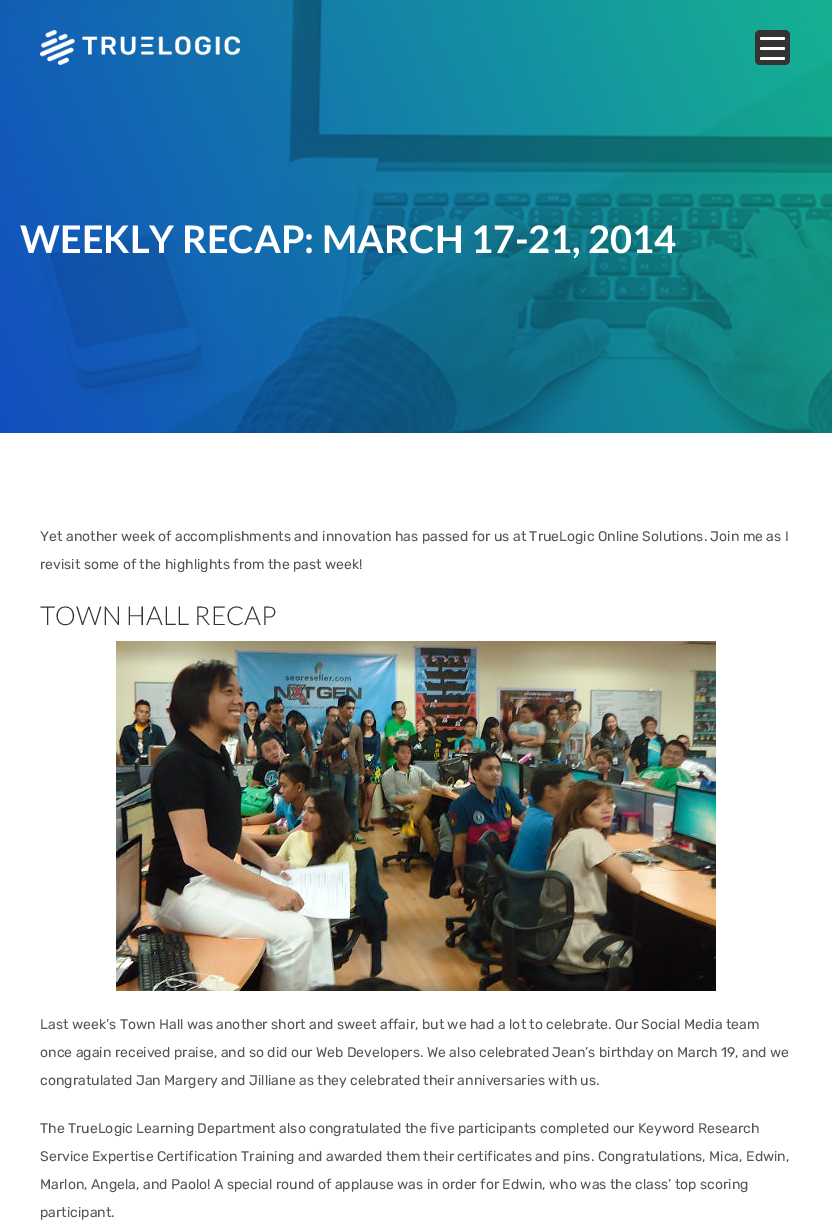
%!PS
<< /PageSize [832 1220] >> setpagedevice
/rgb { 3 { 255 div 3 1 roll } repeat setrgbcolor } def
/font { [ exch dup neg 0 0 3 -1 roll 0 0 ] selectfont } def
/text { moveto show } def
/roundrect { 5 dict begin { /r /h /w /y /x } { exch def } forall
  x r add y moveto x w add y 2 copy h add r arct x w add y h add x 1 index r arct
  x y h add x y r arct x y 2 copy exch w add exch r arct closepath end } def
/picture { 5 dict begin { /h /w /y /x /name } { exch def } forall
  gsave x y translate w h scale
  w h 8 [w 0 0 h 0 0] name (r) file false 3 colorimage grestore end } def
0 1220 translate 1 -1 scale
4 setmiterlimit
255 255 255 rgb
0 0 832 1220 rectfill
(img_02.rgb) 0 0 832 433 picture
51 51 51 rgb
755 30 35 35 5 roundrect fill
255 255 255 rgb
760 47 25 3 1.5 roundrect fill
760 37 25 3 1.5 roundrect fill
760 57 25 3 1.5 roundrect fill
(img_01.rgb) 40 30 200 35 picture
(img_03.rgb) 116 641 600 350 picture
/Lato-Bold 38 font
(WEEKLY RECAP: MARCH 17-21, 2014) 20 253 text
/Rubik-Regular 14 font
85 85 85 rgb
(Yet another week of accomplishments and innovation has passed for us at TrueLogic Online Solutions. Join me as I) 40 541 text
(revisit some of the highlights from the past week!) 40 569 text
/Lato-Light 26 font
51 51 51 rgb
(TOWN HALL RECAP) 40 625 text
/Rubik-Regular 14 font
85 85 85 rgb
(Last week’s Town Hall was another short and sweet affair, but we had a lot to celebrate. Our Social Media team) 40 1029 text
(once again received praise, and so did our Web Developers. We also celebrated Jean’s birthday on March 19, and we) 40 1057 text
(congratulated Jan Margery and Jilliane as they celebrated their anniversaries with us.) 40 1085 text
(The TrueLogic Learning Department also congratulated the five participants completed our Keyword Research) 40 1133 text
(Service Expertise Certification Training and awarded them their certificates and pins. Congratulations, Mica, Edwin,) 40 1161 text
(Marlon, Angela, and Paolo! A special round of applause was in order for Edwin, who was the class’ top scoring) 40 1189 text
(participant.) 40 1217 text
showpage
